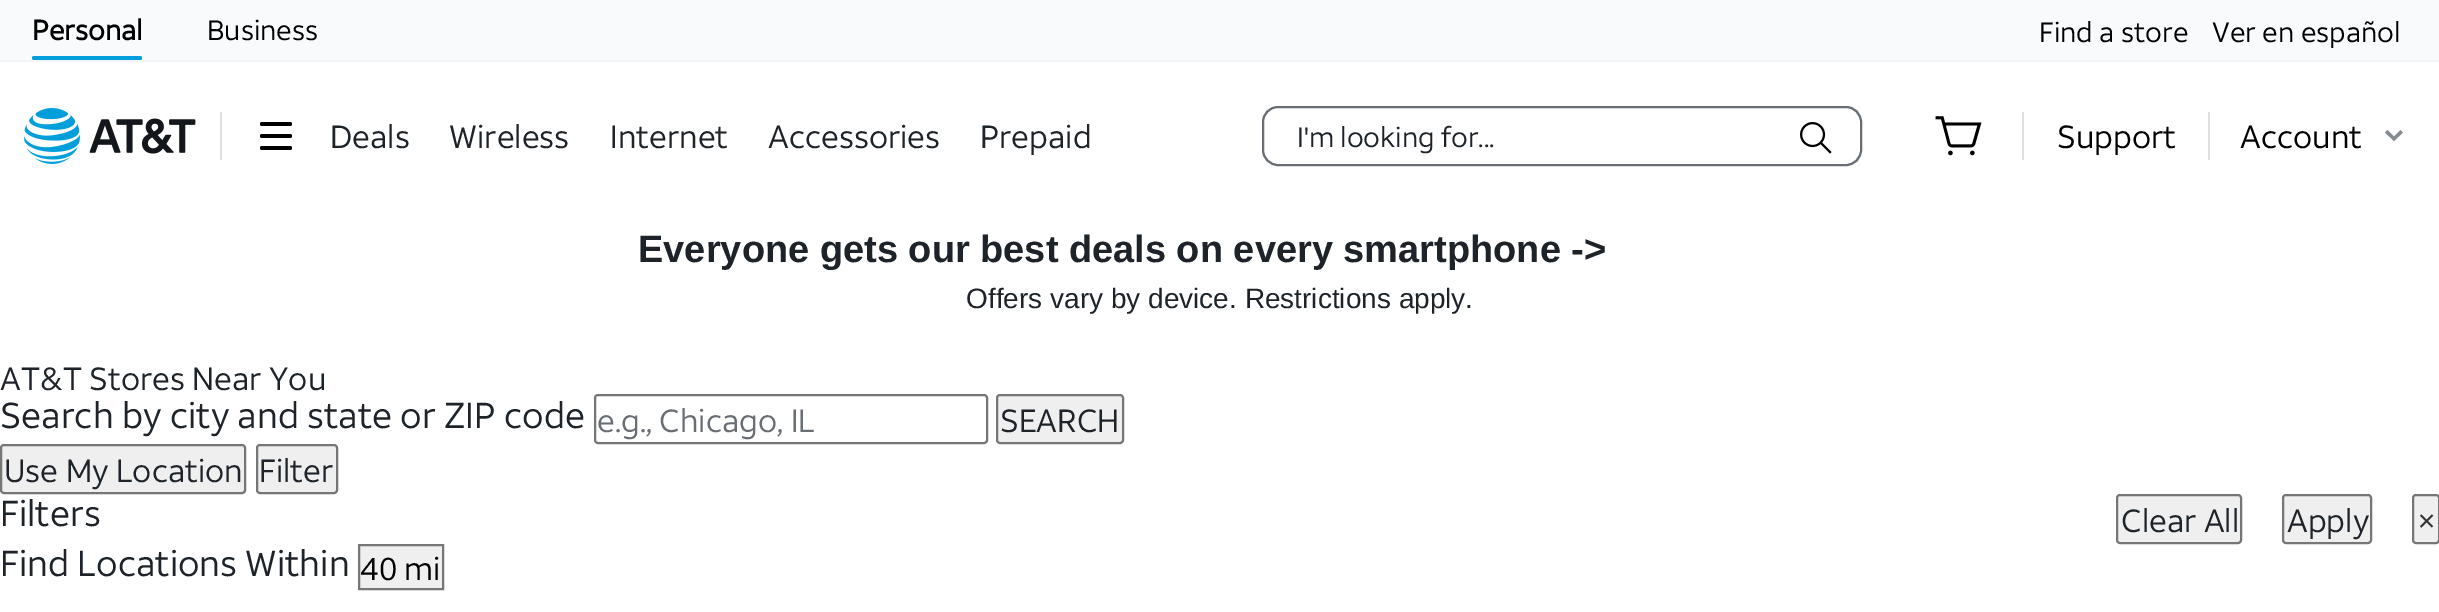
%!PS
<< /PageSize [2439 612] >> setpagedevice
/rgb { 3 { 255 div 3 1 roll } repeat setrgbcolor } def
/font { [ exch dup neg 0 0 3 -1 roll 0 0 ] selectfont } def
/text { moveto show } def
/roundrect { 5 dict begin { /r /h /w /y /x } { exch def } forall
  x r add y moveto x w add y 2 copy h add r arct x w add y h add x 1 index r arct
  x y h add x y r arct x y 2 copy exch w add exch r arct closepath end } def
/picture { 5 dict begin { /h /w /y /x /name } { exch def } forall
  gsave x y translate w h scale
  w h 8 [w 0 0 h 0 0] name (r) file false 3 colorimage grestore end } def
0 612 translate 1 -1 scale
4 setmiterlimit
255 255 255 rgb
0 0 2439 612 rectfill
248 250 251 rgb
0 0 2439 60 rectfill
243 244 246 rgb
0 60 2439 2 rectfill
0 159 219 rgb
32 56 110 4 2 roundrect fill
(img_01.rgb) 24 108 172 56 picture
220 223 227 rgb
220 112 2 48 rectfill
0 0 0 rgb
260 134 32 4 2 roundrect fill
260 122 32 4 2 roundrect fill
260 146 32 4 2 roundrect fill
104 110 116 rgb
2 setlinewidth
1263 107 598 58 15 roundrect stroke
(img_02.rgb) 1800 122 32 32 picture
(img_03.rgb) 1935 116 47 40 picture
220 223 227 rgb
2022 112 2 48 rectfill
2208 112 2 48 rectfill
135 140 148 rgb
2385 132.5 moveto 2.5 -2.5 rlineto 6.5 6.5 rlineto 6.5 -6.5 rlineto 2.5 2.5 rlineto -9 8.5 rlineto closepath eofill
118 118 118 rgb
595 395 392 48 3 roundrect stroke
239 239 239 rgb
997 395 126 48 3 roundrect gsave fill grestore
118 118 118 rgb
stroke
239 239 239 rgb
1 445 244 48 3 roundrect gsave fill grestore
118 118 118 rgb
stroke
239 239 239 rgb
257 445 80 48 3 roundrect gsave fill grestore
118 118 118 rgb
stroke
239 239 239 rgb
2117 495 124 48 3 roundrect gsave fill grestore
118 118 118 rgb
stroke
239 239 239 rgb
2283 495 88 48 3 roundrect gsave fill grestore
118 118 118 rgb
stroke
239 239 239 rgb
2413 495 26 48 3 roundrect gsave fill grestore
118 118 118 rgb
stroke
239 239 239 rgb
359 545 moveto 84 0 rlineto 0 44 rlineto -84 0 rlineto closepath gsave fill grestore
118 118 118 rgb
stroke
/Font-Bold 28 font
0 0 0 rgb
(Personal) 32 40 text
/Font-Regular 28 font
(Business) 207 40 text
(Find a store) 2039 42 text
(Ver en español) 2212 42 text
/Font-Regular 32 font
29 35 41 rgb
(Deals) 330 148 text
(Wireless) 449 148 text
(Internet) 610 148 text
(Accessories) 768 148 text
(Prepaid) 980 148 text
/Font-Regular 28 font
(I'm looking for...) 1297 147 text
/Font-Regular 32 font
0 0 0 rgb
(Support) 2057 148 text
(Account) 2240 148 text
/LiberationSans-Bold 38 font
29 35 41 rgb
(Everyone gets our best deals on every smartphone ->) 638 262 text
/LiberationSans-Regular 28 font
(Offers vary by device. Restrictions apply.) 966 308 text
/Font-Regular 32 font
(AT&T Stores Near You) 0 390 text
/Font-Regular 36 font
(Search by city and state or ZIP code) 0 428 text
/Font-Regular 32 font
104 110 116 rgb
(e.g., Chicago, IL) 597 432 text
29 35 41 rgb
(SEARCH) 1000 432 text
(Use My Location) 4 482 text
(Filter) 259 482 text
/Font-Regular 36 font
(Filters) 0 526 text
/Font-Regular 32 font
(Clear All) 2121 532 text
(Apply) 2287 532 text
51 51 51 rgb
(×) 2417 532 text
/Font-Regular 36 font
29 35 41 rgb
(Find Locations Within) 0 576 text
/Font-Regular 32 font
0 0 0 rgb
(40 mi) 360 580 text
showpage
